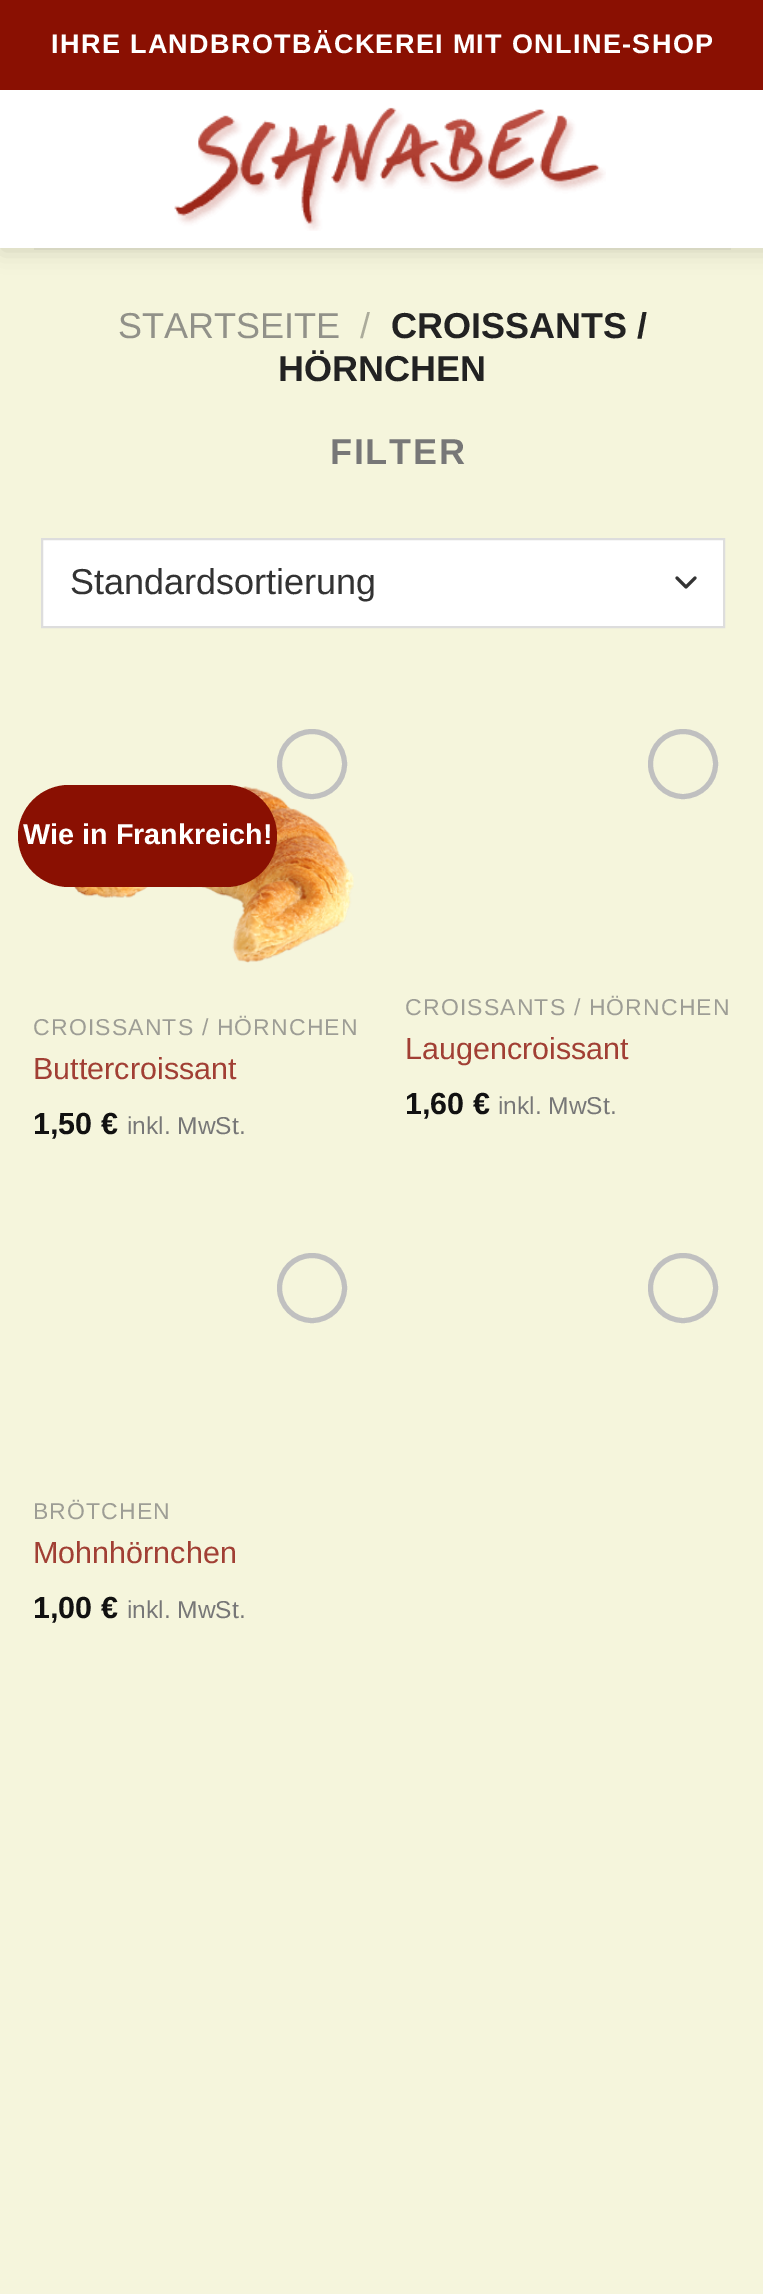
%!PS
<< /PageSize [763 2294] /PageUsesTransparency true >> setpagedevice
/rgb { 3 { 255 div 3 1 roll } repeat setrgbcolor } def
/font { [ exch dup neg 0 0 3 -1 roll 0 0 ] selectfont } def
/text { moveto show } def
/alpha { dup .setfillconstantalpha .setstrokeconstantalpha } def
/circle { newpath 0 360 arc closepath } def
/roundrect { 5 dict begin { /r /h /w /y /x } { exch def } forall
  x r add y moveto x w add y 2 copy h add r arct x w add y h add x 1 index r arct
  x y h add x y r arct x y 2 copy exch w add exch r arct closepath end } def
/shadow { 12 dict begin { /a /b /q /h /w /y /x } { exch def } forall gsave /was 0 def
  9 -2 -9 { dup b mul 4 div /e exch def 1 sub .425 mul 2.718 exch exp 1 add a .99 .min exch div /now exch def
    1 1 now sub 1 was sub div sub alpha /was now def
    w h .min e 2 mul add 0 gt { x e sub y e sub w e 2 mul add h e 2 mul add
      q e add b .6 mul add w h .min 2 div e add .min 0 .max roundrect fill } if } for grestore end } def
/picture { 5 dict begin { /h /w /y /x /name } { exch def } forall
  gsave x y translate w h scale
  w h 8 [w 0 0 h 0 0] name (r) file false 3 colorimage grestore end } def
0 .pushpdf14devicefilter
0 2294 translate 1 -1 scale
4 setmiterlimit
245 245 220 rgb
0 0 763 2294 rectfill
0 0 0 rgb
2 2 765 248 0 11 0.15 shadow
138 16 2 rgb
0 0 763 90 rectfill
255 255 255 rgb
0 90 763 158 rectfill
(img_01.rgb) 174 107 432 124 picture
215 215 194 rgb
34 248 697 2 rectfill
255 255 255 rgb
43 540 680 86 rectfill
51 51 51 rgb
3 setlinewidth
1 setlinecap
1 setlinejoin
677 578 moveto 9 9 rlineto 9 -9 rlineto stroke
221 221 221 rgb
2 setlinewidth
0 setlinecap
0 setlinejoin
42 539 682 88 rectstroke
(img_02.rgb) 74 786 280 177 picture
138 16 2 rgb
18 785 259 102 51 roundrect fill
192 192 192 rgb
5 setlinewidth
312 764 32.5 circle stroke
683 764 32.5 circle stroke
683 1288 32.5 circle stroke
312 1288 32.5 circle stroke
/LiberationSans-Bold 27 font
255 255 255 rgb
51 53 moveto 1.35 0 (IHRE LANDBROTBÄCKEREI MIT ONLINE-SHOP) ashow
/LiberationSans-Regular 36 font
145 145 137 rgb
(STARTSEITE) 118 338 text
171 171 155 rgb
(/) 360 338 text
/LiberationSans-Bold 36 font
34 34 34 rgb
(CROISSANTS /) 391 338 text
(HÖRNCHEN) 278 381 text
119 119 119 rgb
330 464 moveto 1.75 0 (FILTER) ashow
/LiberationSans-Regular 36 font
51 51 51 rgb
(Standardsortierung) 70 594 text
/LiberationSans-Bold 28.75 font
255 255 255 rgb
(Wie in Frankreich!) 23 844 text
/LiberationSans-Regular 23 font
157 157 149 rgb
33 1035 moveto 1.15 0 (CROISSANTS / HÖRNCHEN) ashow
/LiberationSans-Regular 30.5 font
161 63 52 rgb
(Buttercroissant) 33 1079 text
/LiberationSans-Bold 30.5 font
17 17 17 rgb
(1,50 €) 33 1134 text
/LiberationSans-Regular 24.5 font
119 119 119 rgb
(inkl. MwSt.) 127 1134 text
/LiberationSans-Regular 23 font
157 157 149 rgb
405 1015 moveto 1.15 0 (CROISSANTS / HÖRNCHEN) ashow
/LiberationSans-Regular 30.5 font
161 63 52 rgb
(Laugencroissant) 405 1059 text
/LiberationSans-Bold 30.5 font
17 17 17 rgb
(1,60 €) 405 1114 text
/LiberationSans-Regular 24.5 font
119 119 119 rgb
(inkl. MwSt.) 498 1114 text
/LiberationSans-Regular 23 font
157 157 149 rgb
33 1519 moveto 1.15 0 (BRÖTCHEN) ashow
/LiberationSans-Regular 30.5 font
161 63 52 rgb
(Mohnhörnchen) 33 1563 text
/LiberationSans-Bold 30.5 font
17 17 17 rgb
(1,00 €) 33 1618 text
/LiberationSans-Regular 24.5 font
119 119 119 rgb
(inkl. MwSt.) 127 1618 text
.poppdf14devicefilter showpage
